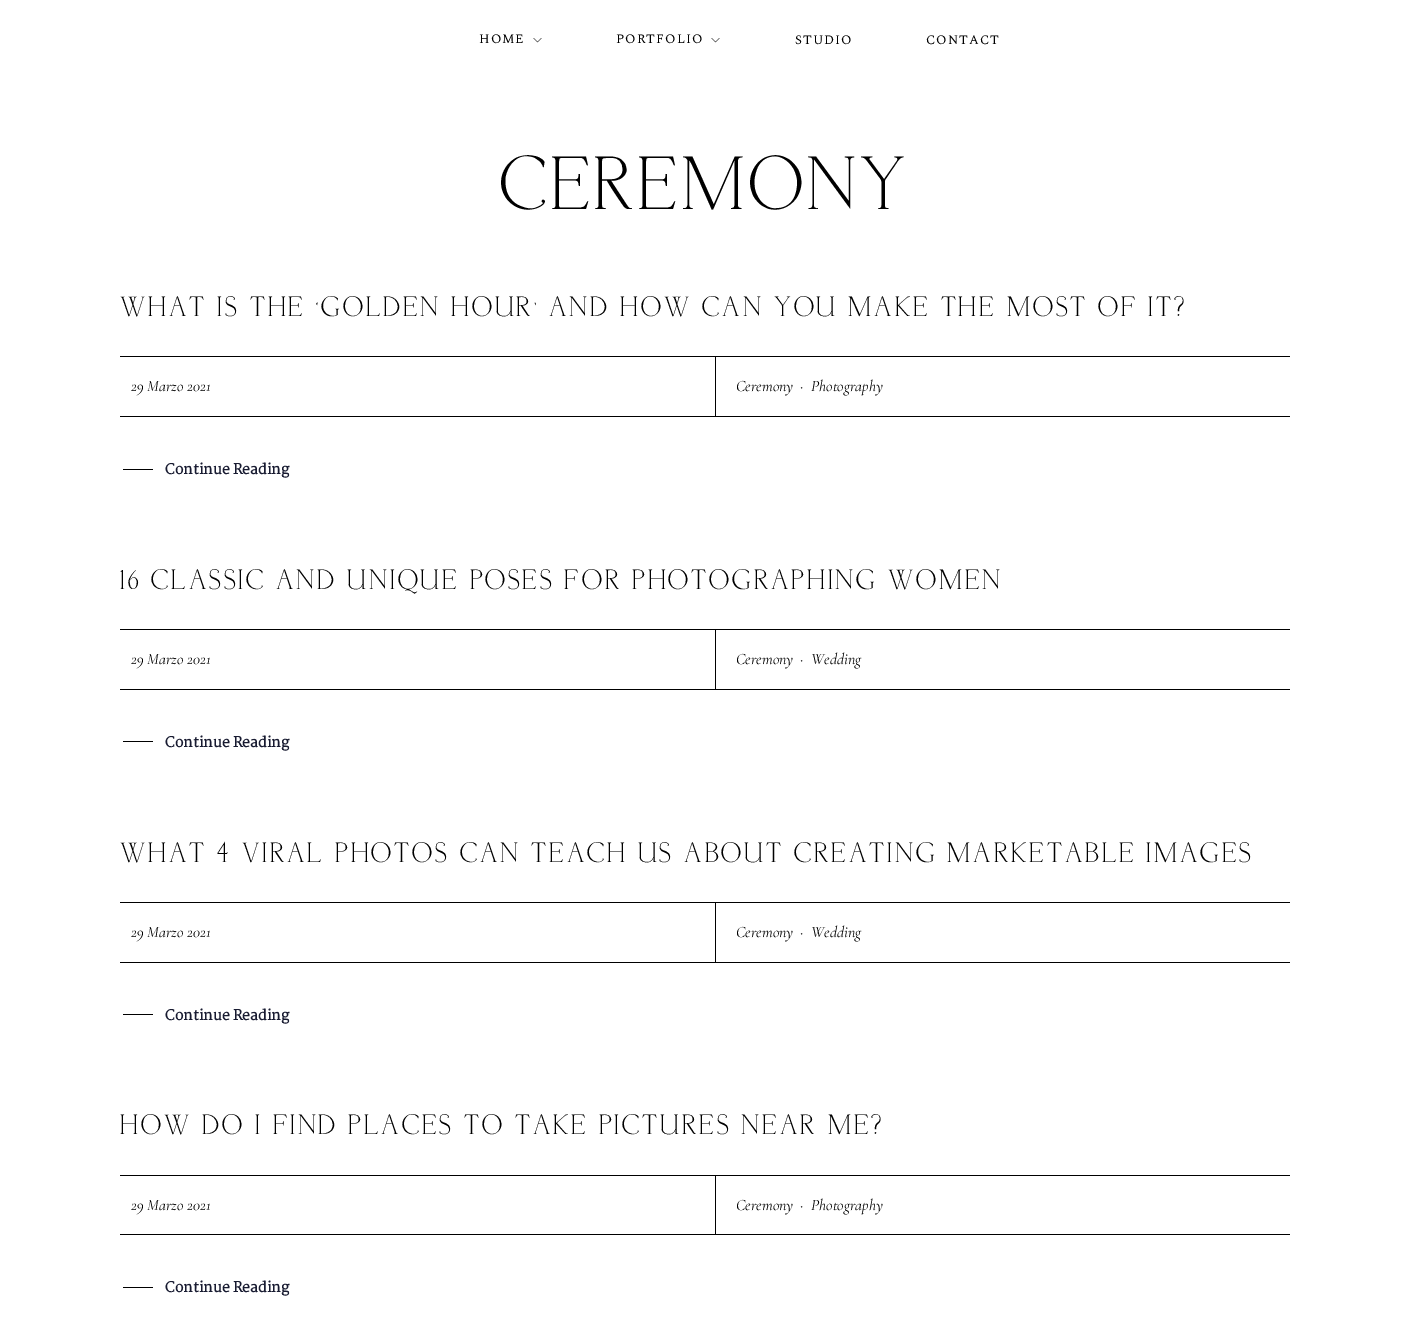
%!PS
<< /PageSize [1410 1328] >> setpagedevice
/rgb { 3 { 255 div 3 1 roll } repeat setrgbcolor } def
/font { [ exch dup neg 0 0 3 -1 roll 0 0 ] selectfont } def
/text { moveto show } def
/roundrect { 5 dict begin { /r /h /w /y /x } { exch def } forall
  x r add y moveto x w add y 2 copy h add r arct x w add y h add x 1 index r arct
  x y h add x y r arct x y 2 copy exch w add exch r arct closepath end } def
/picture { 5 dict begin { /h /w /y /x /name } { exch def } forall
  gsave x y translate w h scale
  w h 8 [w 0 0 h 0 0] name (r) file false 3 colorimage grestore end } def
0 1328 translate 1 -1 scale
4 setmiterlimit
255 255 255 rgb
0 0 1410 1328 rectfill
(img_01.rgb) 533 38 9 5 picture
(img_01.rgb) 711 38 9 5 picture
0 0 0 rgb
120 356 1170 1 rectfill
120 416 1170 1 rectfill
715 357 1 59 rectfill
123 469 30 1 0.5 roundrect fill
120 629 1170 1 rectfill
120 689 1170 1 rectfill
715 630 1 59 rectfill
123 741 30 1 0.5 roundrect fill
120 902 1170 1 rectfill
120 962 1170 1 rectfill
715 903 1 59 rectfill
123 1014 30 1 0.5 roundrect fill
120 1175 1170 1 rectfill
120 1234 1170 1 rectfill
715 1176 1 58 rectfill
123 1287 30 1 0.5 roundrect fill
/Spectral-Regular 13 font
479 43 moveto 1 0 (HOME) ashow
616 43 moveto 1 0 (PORTFOLIO) ashow
795 44 moveto 1 0 (STUDIO) ashow
926 44 moveto 1 0 (CONTACT) ashow
/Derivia-Regular 70 font
500 209 moveto 5 0 (CEREMONY) ashow
/Derivia-Regular 26 font
120 316 moveto 3 0 (WHAT IS THE ‘GOLDEN HOUR’ AND HOW CAN YOU MAKE THE MOST OF IT?) ashow
/CormorantGaramond-Italic 16 font
(29 Marzo 2021) 131 391 text
(Ceremony) 736 391 text
(·) 800 391 text
(Photography) 811 391 text
/Martel-Bold 14 font
24 27 49 rgb
(Continue Reading) 165 474 text
/Derivia-Regular 26 font
0 0 0 rgb
120 589 moveto 3 0 (16 CLASSIC AND UNIQUE POSES FOR PHOTOGRAPHING WOMEN) ashow
/CormorantGaramond-Italic 16 font
(29 Marzo 2021) 131 664 text
(Ceremony) 736 664 text
(·) 800 664 text
(Wedding) 811 664 text
/Martel-Bold 14 font
24 27 49 rgb
(Continue Reading) 165 747 text
/Derivia-Regular 26 font
0 0 0 rgb
120 862 moveto 3 0 (WHAT 4 VIRAL PHOTOS CAN TEACH US ABOUT CREATING MARKETABLE IMAGES) ashow
/CormorantGaramond-Italic 16 font
(29 Marzo 2021) 131 937 text
(Ceremony) 736 937 text
(·) 800 937 text
(Wedding) 811 937 text
/Martel-Bold 14 font
24 27 49 rgb
(Continue Reading) 165 1020 text
/Derivia-Regular 26 font
0 0 0 rgb
120 1134 moveto 3 0 (HOW DO I FIND PLACES TO TAKE PICTURES NEAR ME?) ashow
/CormorantGaramond-Italic 16 font
(29 Marzo 2021) 131 1210 text
(Ceremony) 736 1210 text
(·) 800 1210 text
(Photography) 811 1210 text
/Martel-Bold 14 font
24 27 49 rgb
(Continue Reading) 165 1292 text
showpage
